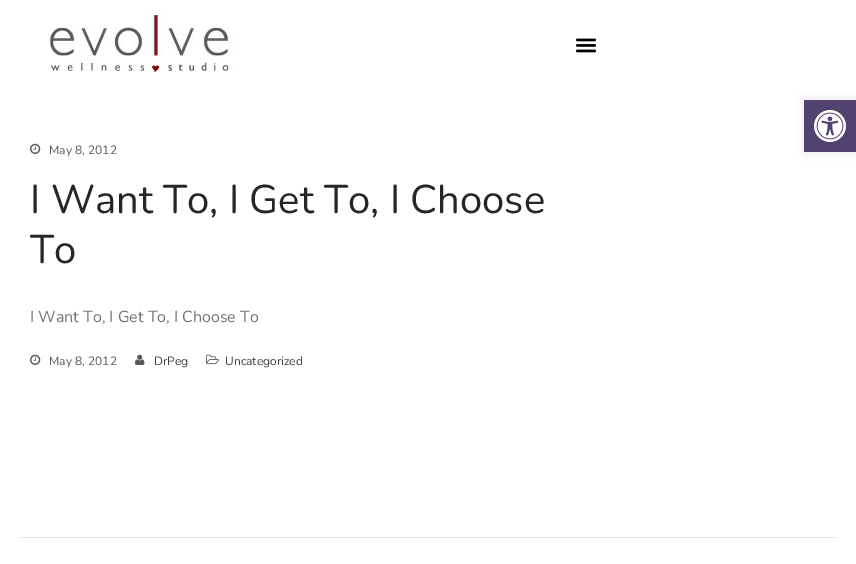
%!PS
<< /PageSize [856 564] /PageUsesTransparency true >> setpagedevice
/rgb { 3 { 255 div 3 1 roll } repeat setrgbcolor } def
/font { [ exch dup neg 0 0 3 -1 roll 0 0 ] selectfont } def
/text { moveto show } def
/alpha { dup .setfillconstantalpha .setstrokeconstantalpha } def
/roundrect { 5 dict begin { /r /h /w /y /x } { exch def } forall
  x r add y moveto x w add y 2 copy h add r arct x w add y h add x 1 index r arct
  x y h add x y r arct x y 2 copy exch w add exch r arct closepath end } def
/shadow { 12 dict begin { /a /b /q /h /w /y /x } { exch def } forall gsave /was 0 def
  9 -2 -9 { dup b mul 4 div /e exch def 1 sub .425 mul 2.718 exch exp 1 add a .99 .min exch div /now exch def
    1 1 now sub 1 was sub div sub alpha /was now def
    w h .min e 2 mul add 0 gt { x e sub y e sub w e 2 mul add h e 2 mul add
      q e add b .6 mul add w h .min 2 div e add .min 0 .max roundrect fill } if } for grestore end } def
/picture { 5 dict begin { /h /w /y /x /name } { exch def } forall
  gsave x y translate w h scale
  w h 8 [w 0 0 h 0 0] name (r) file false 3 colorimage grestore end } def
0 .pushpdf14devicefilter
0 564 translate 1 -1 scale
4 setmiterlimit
255 255 255 rgb
0 0 856 564 rectfill
0 0 0 rgb
804 100 52 52 0 5 0.1 shadow
81 66 111 rgb
804 100 52 52 rectfill
(img_01.rgb) 814 110 32 32 picture
(img_02.rgb) 48 8 187 64 picture
(img_03.rgb) 575 38 22 15 picture
(img_04.rgb) 30 143 11 11 picture
(img_04.rgb) 30 354 11 11 picture
(img_05.rgb) 135 354 10 11 picture
(img_06.rgb) 206 354 13 11 picture
229 229 229 rgb
20 537 816 1 rectfill
/Nunito-Regular 12 font
89 89 89 rgb
(May 8, 2012) 49 154 text
/Nunito-Regular 40 font
38 38 38 rgb
(I Want To, I Get To, I Choose) 30 213 text
(To) 30 263 text
/Nunito-Regular 16 font
115 115 115 rgb
(I Want To, I Get To, I Choose To) 30 322 text
/Nunito-Regular 12 font
89 89 89 rgb
(May 8, 2012) 49 365 text
64 64 64 rgb
(DrPeg) 154 365 text
(Uncategorized) 225 365 text
.poppdf14devicefilter showpage
